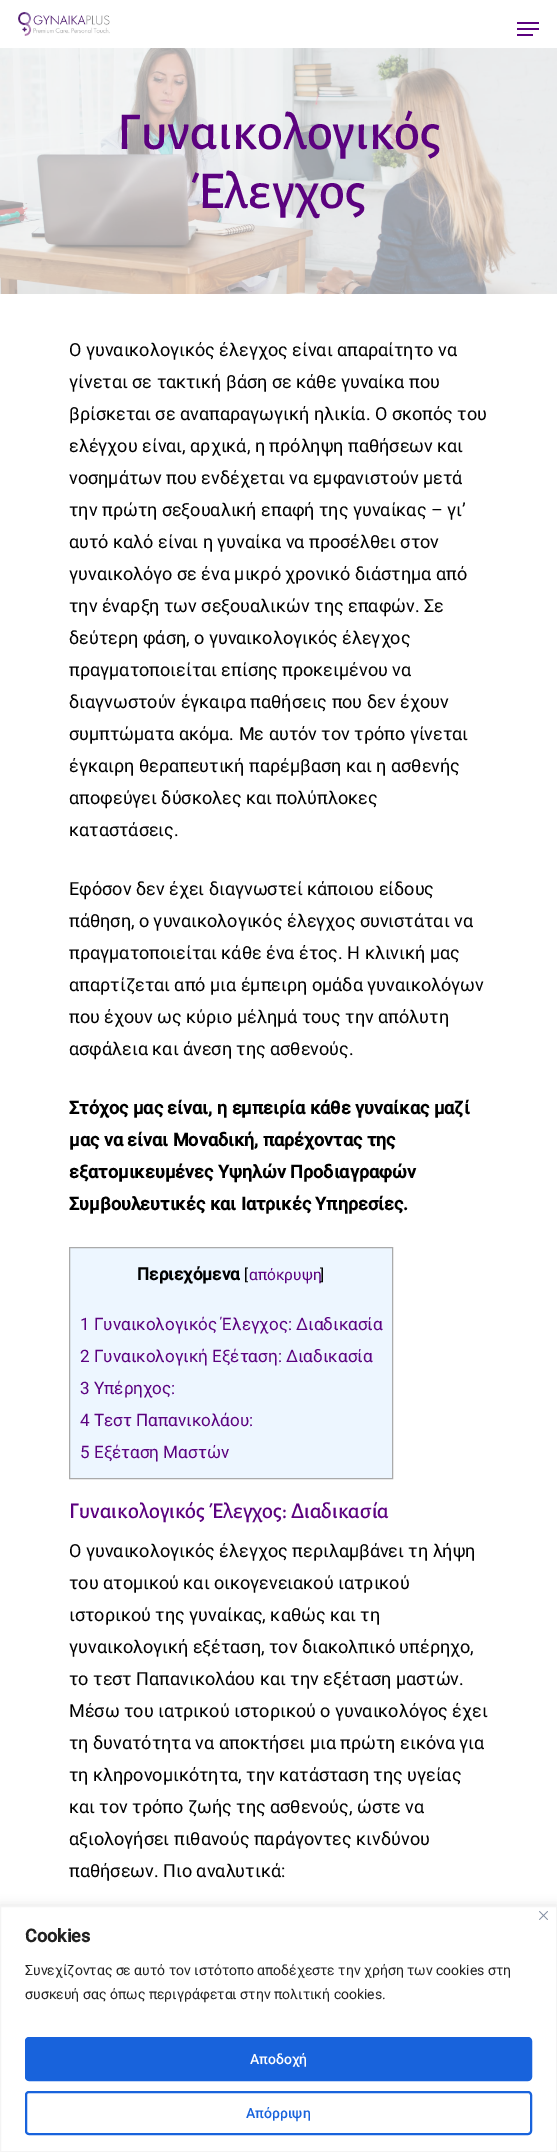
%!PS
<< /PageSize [557 2152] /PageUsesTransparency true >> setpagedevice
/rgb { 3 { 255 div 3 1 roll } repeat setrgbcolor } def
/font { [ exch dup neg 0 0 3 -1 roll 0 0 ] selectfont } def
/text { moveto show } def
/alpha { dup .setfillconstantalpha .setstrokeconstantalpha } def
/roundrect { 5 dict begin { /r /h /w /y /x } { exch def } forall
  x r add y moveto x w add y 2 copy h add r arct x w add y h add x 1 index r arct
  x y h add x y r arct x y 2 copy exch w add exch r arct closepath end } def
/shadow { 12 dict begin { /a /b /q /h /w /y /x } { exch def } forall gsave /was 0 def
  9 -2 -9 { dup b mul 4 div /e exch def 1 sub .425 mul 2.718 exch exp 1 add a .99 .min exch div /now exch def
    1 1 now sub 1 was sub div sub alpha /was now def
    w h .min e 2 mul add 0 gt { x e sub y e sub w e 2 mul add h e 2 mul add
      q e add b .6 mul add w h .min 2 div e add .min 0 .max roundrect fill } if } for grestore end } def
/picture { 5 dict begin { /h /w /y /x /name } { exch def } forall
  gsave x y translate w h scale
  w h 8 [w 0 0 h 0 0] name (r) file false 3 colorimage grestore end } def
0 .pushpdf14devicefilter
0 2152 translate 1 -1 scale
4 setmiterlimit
255 255 255 rgb
0 0 557 2152 rectfill
(img_01.rgb) 18 12 92 24 picture
91 1 127 rgb
517 22 22 2 rectfill
517 34 16 2 rectfill
517 28 22 2 rectfill
(img_02.rgb) 0 48 557 246 picture
237 246 255 rgb
69.5 1247.5 moveto 323 0 rlineto 0 231 rlineto -323 0 rlineto closepath gsave fill grestore
170 170 170 rgb
stroke
172 171 171 rgb
0 1905 557 246 0 5 0.3 shadow
255 255 255 rgb
0.5 1906.5 moveto 556 0 rlineto 0 245 rlineto -556 0 rlineto closepath gsave fill grestore
244 244 244 rgb
stroke
(img_03.rgb) 539 1911 9 9 picture
24 99 220 rgb
26 2038 505 42 3 roundrect gsave fill grestore
2 setlinewidth
stroke
26 2092 505 42 3 roundrect stroke
/AlegreyaSans-Medium 53.25 font
91 1 127 rgb
(Γυναικολογικός) 117 149 text
(Έλεγχος) 191 208 text
/Roboto-Regular 18 font
0 0 0 rgb
(Ο γυναικολογικός έλεγχος είναι απαραίτητο να) 69 356 text
(γίνεται σε τακτική βάση σε κάθε γυναίκα που) 69 388 text
(βρίσκεται σε αναπαραγωγική ηλικία. Ο σκοπός του) 69 420 text
(ελέγχου είναι, αρχικά, η πρόληψη παθήσεων και) 69 452 text
(νοσημάτων που ενδέχεται να εμφανιστούν μετά) 69 484 text
(την πρώτη σεξουαλική επαφή της γυναίκας – γι’) 69 516 text
(αυτό καλό είναι η γυναίκα να προσέλθει στον) 69 548 text
(γυναικολόγο σε ένα μικρό χρονικό διάστημα από) 69 580 text
(την έναρξη των σεξουαλικών της επαφών. Σε) 69 612 text
(δεύτερη φάση, ο γυναικολογικός έλεγχος) 69 644 text
(πραγματοποιείται επίσης προκειμένου να) 69 676 text
(διαγνωστούν έγκαιρα παθήσεις που δεν έχουν) 69 708 text
(συμπτώματα ακόμα. Με αυτόν τον τρόπο γίνεται) 69 740 text
(έγκαιρη θεραπευτική παρέμβαση και η ασθενής) 69 772 text
(αποφεύγει δύσκολες και πολύπλοκες) 69 804 text
(καταστάσεις.) 69 836 text
(Εφόσον δεν έχει διαγνωστεί κάποιου είδους) 69 895 text
(πάθηση, ο γυναικολογικός έλεγχος συνιστάται να) 69 927 text
(πραγματοποιείται κάθε ένα έτος. Η κλινική μας) 69 959 text
(απαρτίζεται από μια έμπειρη ομάδα γυναικολόγων) 69 991 text
(που έχουν ως κύριο μέλημά τους την απόλυτη) 69 1023 text
(ασφάλεια και άνεση της ασθενούς.) 69 1055 text
/Roboto-Bold 18 font
(Στόχος μας είναι, η εμπειρία κάθε γυναίκας μαζί) 69 1114 text
(μας να είναι Μοναδική, παρέχοντας της) 69 1146 text
(εξατομικευμένες Υψηλών Προδιαγραφών) 69 1178 text
(Συμβουλευτικές και Ιατρικές Υπηρεσίες.) 69 1210 text
/Roboto-Bold 17.1 font
(Περιεχόμενα) 137 1280 text
/Roboto-Regular 15.5 font
([) 244 1280 text
91 1 127 rgb
(απόκρυψη) 249 1280 text
0 0 0 rgb
(]) 320 1280 text
/Roboto-Regular 17.1 font
91 1 127 rgb
(1 Γυναικολογικός Έλεγχος: Διαδικασία) 80 1330 text
(2 Γυναικολογική Εξέταση: Διαδικασία) 80 1362 text
(3 Υπέρηχος:) 80 1394 text
(4 Τεστ Παπανικολάου:) 80 1426 text
(5 Εξέταση Μαστών) 80 1458 text
/AlegreyaSans-Medium 22.4 font
(Γυναικολογικός Έλεγχος: Διαδικασία) 69 1518 text
/Roboto-Regular 18 font
0 0 0 rgb
(Ο γυναικολογικός έλεγχος περιλαμβάνει τη λήψη) 69 1557 text
(του ατομικού και οικογενειακού ιατρικού) 69 1589 text
(ιστορικού της γυναίκας, καθώς και τη) 69 1621 text
(γυναικολογική εξέταση, τον διακολπικό υπέρηχο,) 69 1653 text
(το τεστ Παπανικολάου και την εξέταση μαστών.) 69 1685 text
(Μέσω του ιατρικού ιστορικού ο γυναικολόγος έχει) 69 1717 text
(τη δυνατότητα να αποκτήσει μια πρώτη εικόνα για) 69 1749 text
(τη κληρονομικότητα, την κατάσταση της υγείας) 69 1781 text
(και τον τρόπο ζωής της ασθενούς, ώστε να) 69 1813 text
(αξιολογήσει πιθανούς παράγοντες κινδύνου) 69 1845 text
(παθήσεων. Πιο αναλυτικά:) 69 1877 text
/Roboto-Bold 18 font
33 33 33 rgb
(Cookies) 25 1942 text
/Roboto-Regular 14 font
(Συνεχίζοντας σε αυτό τον ιστότοπο αποδέχεστε την χρήση των cookies στη) 25 1975 text
(συσκευή σας όπως περιγράφεται στην πολιτική cookies.) 25 1999 text
/Roboto-Medium 14 font
255 255 255 rgb
(Αποδοχή) 250 2064 text
24 99 220 rgb
(Απόρριψη) 246 2118 text
.poppdf14devicefilter showpage
